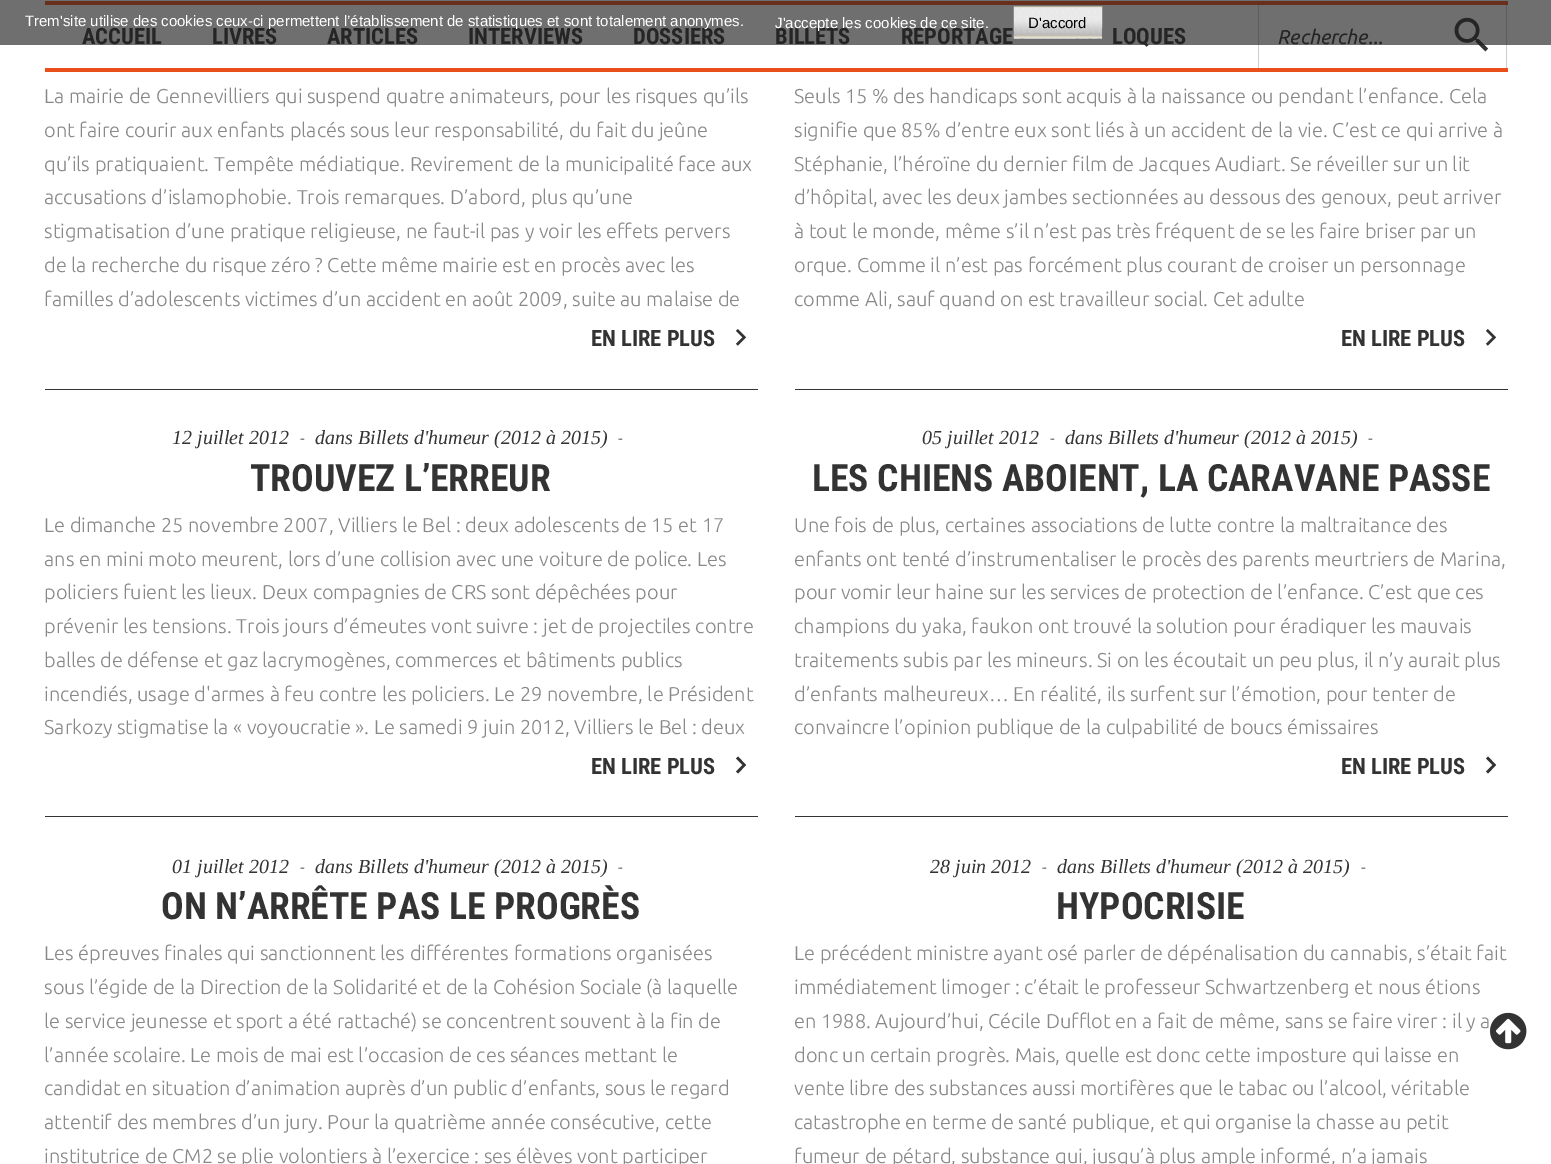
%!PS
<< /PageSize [1551 1164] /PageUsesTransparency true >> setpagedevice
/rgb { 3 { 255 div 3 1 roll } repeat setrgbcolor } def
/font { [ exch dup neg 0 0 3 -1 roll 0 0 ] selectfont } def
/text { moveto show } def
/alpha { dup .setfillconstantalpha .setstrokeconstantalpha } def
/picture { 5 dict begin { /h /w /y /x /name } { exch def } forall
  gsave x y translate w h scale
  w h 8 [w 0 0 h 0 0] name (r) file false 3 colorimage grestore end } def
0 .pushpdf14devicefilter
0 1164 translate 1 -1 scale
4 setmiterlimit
255 255 255 rgb
0 0 1551 1164 rectfill
234 78 27 rgb
45 1 1463 4 rectfill
45 68 1463 4 rectfill
205 205 205 rgb
1506 5 1 63 rectfill
1258 5 1 63 rectfill
(img_02.rgb) 1454 17 35 35 picture
51 51 51 rgb
45 389 713 1 rectfill
(img_03.rgb) 735 329 12 17 picture
795 389 713 1 rectfill
(img_03.rgb) 1485 329 12 17 picture
45 816 713 1 rectfill
738 756.5 moveto -2 2 rlineto 6.5 6.5 rlineto -6.5 6.5 rlineto 2 2 rlineto 8 -8.5 rlineto closepath fill
795 816 713 1 rectfill
1488 756.5 moveto -2 2 rlineto 6.5 6.5 rlineto -6.5 6.5 rlineto 2 2 rlineto 8 -8.5 rlineto closepath fill
(img_04.rgb) 1490 1012 37 38 picture
/RobotoCondensed-Bold 22.5 font
(ACCUEIL) 82 44 text
(LIVRES) 212 44 text
(ARTICLES) 327 44 text
(INTERVIEWS) 468 44 text
(DOSSIERS) 633 44 text
(BILLETS) 775 44 text
(REPORTAGE) 901 44 text
(LOQUES) 1112 44 text
/Ubuntu-Italic 20 font
(Recherche...) 1277 44 text
0.64 alpha
29 29 29 rgb
0 0 1551 45 rectfill
1 alpha
(img_01.rgb) 1013 6 90 33 picture
/LiberationSans-Regular 15 font
0 0 0 rgb
(D'accord) 1028 28 text
255 255 255 rgb
(J'accepte les cookies de ce site.) 775 28 text
(Trem'site utilise des cookies ceux-ci permettent l’établissement de statistiques et sont totalement anonymes.) 25 26 text
/Ubuntu-Light 20 font
136 136 136 rgb
(La mairie de Gennevilliers qui suspend quatre animateurs, pour les risques qu’ils) 44 103 text
(ont faire courir aux enfants placés sous leur responsabilité, du fait du jeûne) 44 137 text
(qu’ils pratiquaient. Tempête médiatique. Revirement de la municipalité face aux) 44 171 text
(accusations d’islamophobie. Trois remarques. D’abord, plus qu’une) 44 204 text
(stigmatisation d’une pratique religieuse, ne faut-il pas y voir les effets pervers) 44 238 text
(de la recherche du risque zéro ? Cette même mairie est en procès avec les) 44 272 text
(familles d’adolescents victimes d’un accident en août 2009, suite au malaise de) 44 306 text
/RobotoCondensed-Bold 22.5 font
51 51 51 rgb
(EN LIRE PLUS) 591 346 text
/Ubuntu-Light 20 font
136 136 136 rgb
(Seuls 15 % des handicaps sont acquis à la naissance ou pendant l’enfance. Cela) 794 103 text
(signifie que 85% d’entre eux sont liés à un accident de la vie. C’est ce qui arrive à) 794 137 text
(Stéphanie, l’héroïne du dernier film de Jacques Audiart. Se réveiller sur un lit) 794 171 text
(d’hôpital, avec les deux jambes sectionnées au dessous des genoux, peut arriver) 794 204 text
(à tout le monde, même s’il n’est pas très fréquent de se les faire briser par un) 794 238 text
(orque. Comme il n’est pas forcément plus courant de croiser un personnage) 794 272 text
(comme Ali, sauf quand on est travailleur social. Cet adulte) 794 306 text
/RobotoCondensed-Bold 22.5 font
51 51 51 rgb
(EN LIRE PLUS) 1341 346 text
/LiberationSerif-Italic 20 font
(12 juillet 2012) 172 444 text
/Ubuntu-Regular 16 font
136 136 136 rgb
(-) 300 444 text
/LiberationSerif-Italic 20 font
51 51 51 rgb
(dans Billets d'humeur \(2012 à 2015\)) 315 444 text
/Ubuntu-Regular 16 font
136 136 136 rgb
(-) 618 444 text
/RobotoCondensed-Bold 37.5 font
51 51 51 rgb
(TROUVEZ L’ERREUR) 250 491 text
/Ubuntu-Light 20 font
136 136 136 rgb
(Le dimanche 25 novembre 2007, Villiers le Bel : deux adolescents de 15 et 17) 44 532 text
(ans en mini moto meurent, lors d’une collision avec une voiture de police. Les) 44 566 text
(policiers fuient les lieux. Deux compagnies de CRS sont dépêchées pour) 44 599 text
(prévenir les tensions. Trois jours d’émeutes vont suivre : jet de projectiles contre) 44 633 text
(balles de défense et gaz lacrymogènes, commerces et bâtiments publics) 44 667 text
(incendiés, usage d'armes à feu contre les policiers. Le 29 novembre, le Président) 44 701 text
(Sarkozy stigmatise la « voyoucratie ». Le samedi 9 juin 2012, Villiers le Bel : deux) 44 734 text
/RobotoCondensed-Bold 22.5 font
51 51 51 rgb
(EN LIRE PLUS) 591 774 text
/LiberationSerif-Italic 20 font
(05 juillet 2012) 922 444 text
/Ubuntu-Regular 16 font
136 136 136 rgb
(-) 1050 444 text
/LiberationSerif-Italic 20 font
51 51 51 rgb
(dans Billets d'humeur \(2012 à 2015\)) 1065 444 text
/Ubuntu-Regular 16 font
136 136 136 rgb
(-) 1368 444 text
/RobotoCondensed-Bold 37.5 font
51 51 51 rgb
(LES CHIENS ABOIENT, LA CARAVANE PASSE) 812 491 text
/Ubuntu-Light 20 font
136 136 136 rgb
(Une fois de plus, certaines associations de lutte contre la maltraitance des) 794 532 text
(enfants ont tenté d’instrumentaliser le procès des parents meurtriers de Marina,) 794 566 text
(pour vomir leur haine sur les services de protection de l’enfance. C’est que ces) 794 599 text
(champions du yaka, faukon ont trouvé la solution pour éradiquer les mauvais) 794 633 text
(traitements subis par les mineurs. Si on les écoutait un peu plus, il n’y aurait plus) 794 667 text
(d’enfants malheureux… En réalité, ils surfent sur l’émotion, pour tenter de) 794 701 text
(convaincre l’opinion publique de la culpabilité de boucs émissaires) 794 734 text
/RobotoCondensed-Bold 22.5 font
51 51 51 rgb
(EN LIRE PLUS) 1341 774 text
/LiberationSerif-Italic 20 font
(01 juillet 2012) 172 873 text
/Ubuntu-Regular 16 font
136 136 136 rgb
(-) 300 873 text
/LiberationSerif-Italic 20 font
51 51 51 rgb
(dans Billets d'humeur \(2012 à 2015\)) 315 873 text
/Ubuntu-Regular 16 font
136 136 136 rgb
(-) 618 873 text
/RobotoCondensed-Bold 37.5 font
51 51 51 rgb
(ON N’ARRÊTE PAS LE PROGRÈS) 161 919 text
/Ubuntu-Light 20 font
136 136 136 rgb
(Les épreuves finales qui sanctionnent les différentes formations organisées) 44 960 text
(sous l’égide de la Direction de la Solidarité et de la Cohésion Sociale \(à laquelle) 44 994 text
(le service jeunesse et sport a été rattaché\) se concentrent souvent à la fin de) 44 1028 text
(l’année scolaire. Le mois de mai est l’occasion de ces séances mettant le) 44 1062 text
(candidat en situation d’animation auprès d’un public d’enfants, sous le regard) 44 1095 text
(attentif des membres d’un jury. Pour la quatrième année consécutive, cette) 44 1129 text
(institutrice de CM2 se plie volontiers à l’exercice : ses élèves vont participer) 44 1163 text
/LiberationSerif-Italic 20 font
51 51 51 rgb
(28 juin 2012) 930 873 text
/Ubuntu-Regular 16 font
136 136 136 rgb
(-) 1042 873 text
/LiberationSerif-Italic 20 font
51 51 51 rgb
(dans Billets d'humeur \(2012 à 2015\)) 1057 873 text
/Ubuntu-Regular 16 font
136 136 136 rgb
(-) 1361 873 text
/RobotoCondensed-Bold 37.5 font
51 51 51 rgb
(HYPOCRISIE) 1056 919 text
/Ubuntu-Light 20 font
136 136 136 rgb
(Le précédent ministre ayant osé parler de dépénalisation du cannabis, s’était fait) 794 960 text
(immédiatement limoger : c’était le professeur Schwartzenberg et nous étions) 794 994 text
(en 1988. Aujourd’hui, Cécile Dufflot en a fait de même, sans se faire virer : il y a) 794 1028 text
(donc un certain progrès. Mais, quelle est donc cette imposture qui laisse en) 794 1062 text
(vente libre des substances aussi mortifères que le tabac ou l’alcool, véritable) 794 1095 text
(catastrophe en terme de santé publique, et qui organise la chasse au petit) 794 1129 text
(fumeur de pétard, substance qui, jusqu’à plus ample informé, n’a jamais) 794 1163 text
.poppdf14devicefilter showpage
